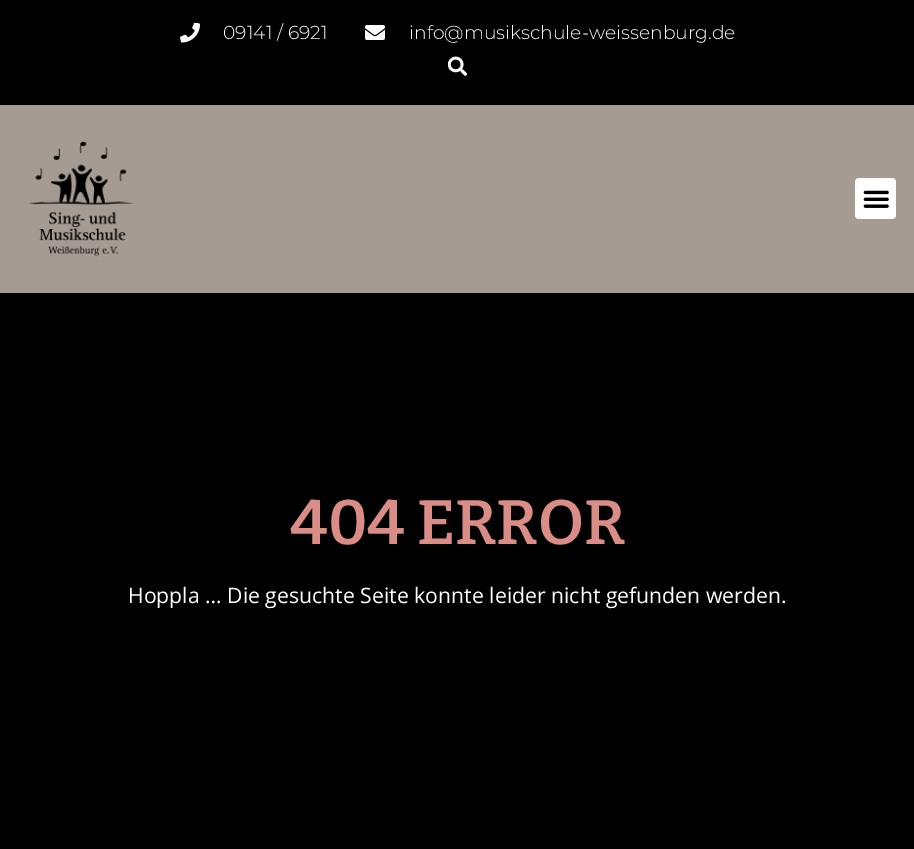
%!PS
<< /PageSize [914 849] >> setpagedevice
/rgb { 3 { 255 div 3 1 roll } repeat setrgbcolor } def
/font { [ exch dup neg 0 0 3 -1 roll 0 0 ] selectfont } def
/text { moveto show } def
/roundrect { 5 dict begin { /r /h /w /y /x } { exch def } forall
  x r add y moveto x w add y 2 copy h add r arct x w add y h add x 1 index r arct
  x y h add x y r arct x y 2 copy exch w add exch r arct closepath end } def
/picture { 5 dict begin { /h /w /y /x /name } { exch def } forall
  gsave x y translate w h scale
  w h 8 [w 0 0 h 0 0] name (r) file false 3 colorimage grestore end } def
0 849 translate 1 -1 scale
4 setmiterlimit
0 0 0 rgb
0 0 914 849 rectfill
(img_01.rgb) 180 23 20 20 picture
(img_02.rgb) 365 25 20 15 picture
(img_03.rgb) 448 56 20 20 picture
165 155 146 rgb
0 105 914 188 rectfill
(img_04.rgb) 28 141 106 116 picture
255 255 255 rgb
855 178 41 41 4 roundrect fill
(img_05.rgb) 863 190 26 18 picture
/Montserrat-Light 18.75 font
(09141 / 6921) 223 39 text
(info@musikschule-weissenburg.de) 409 39 text
/Bitter-SemiBold 62.5 font
218 141 135 rgb
(404 ERROR) 290 544 text
/OpenSans-Regular 21.25 font
255 255 255 rgb
(Hoppla … Die gesuchte Seite konnte leider nicht gefunden werden.) 128 603 text
showpage
